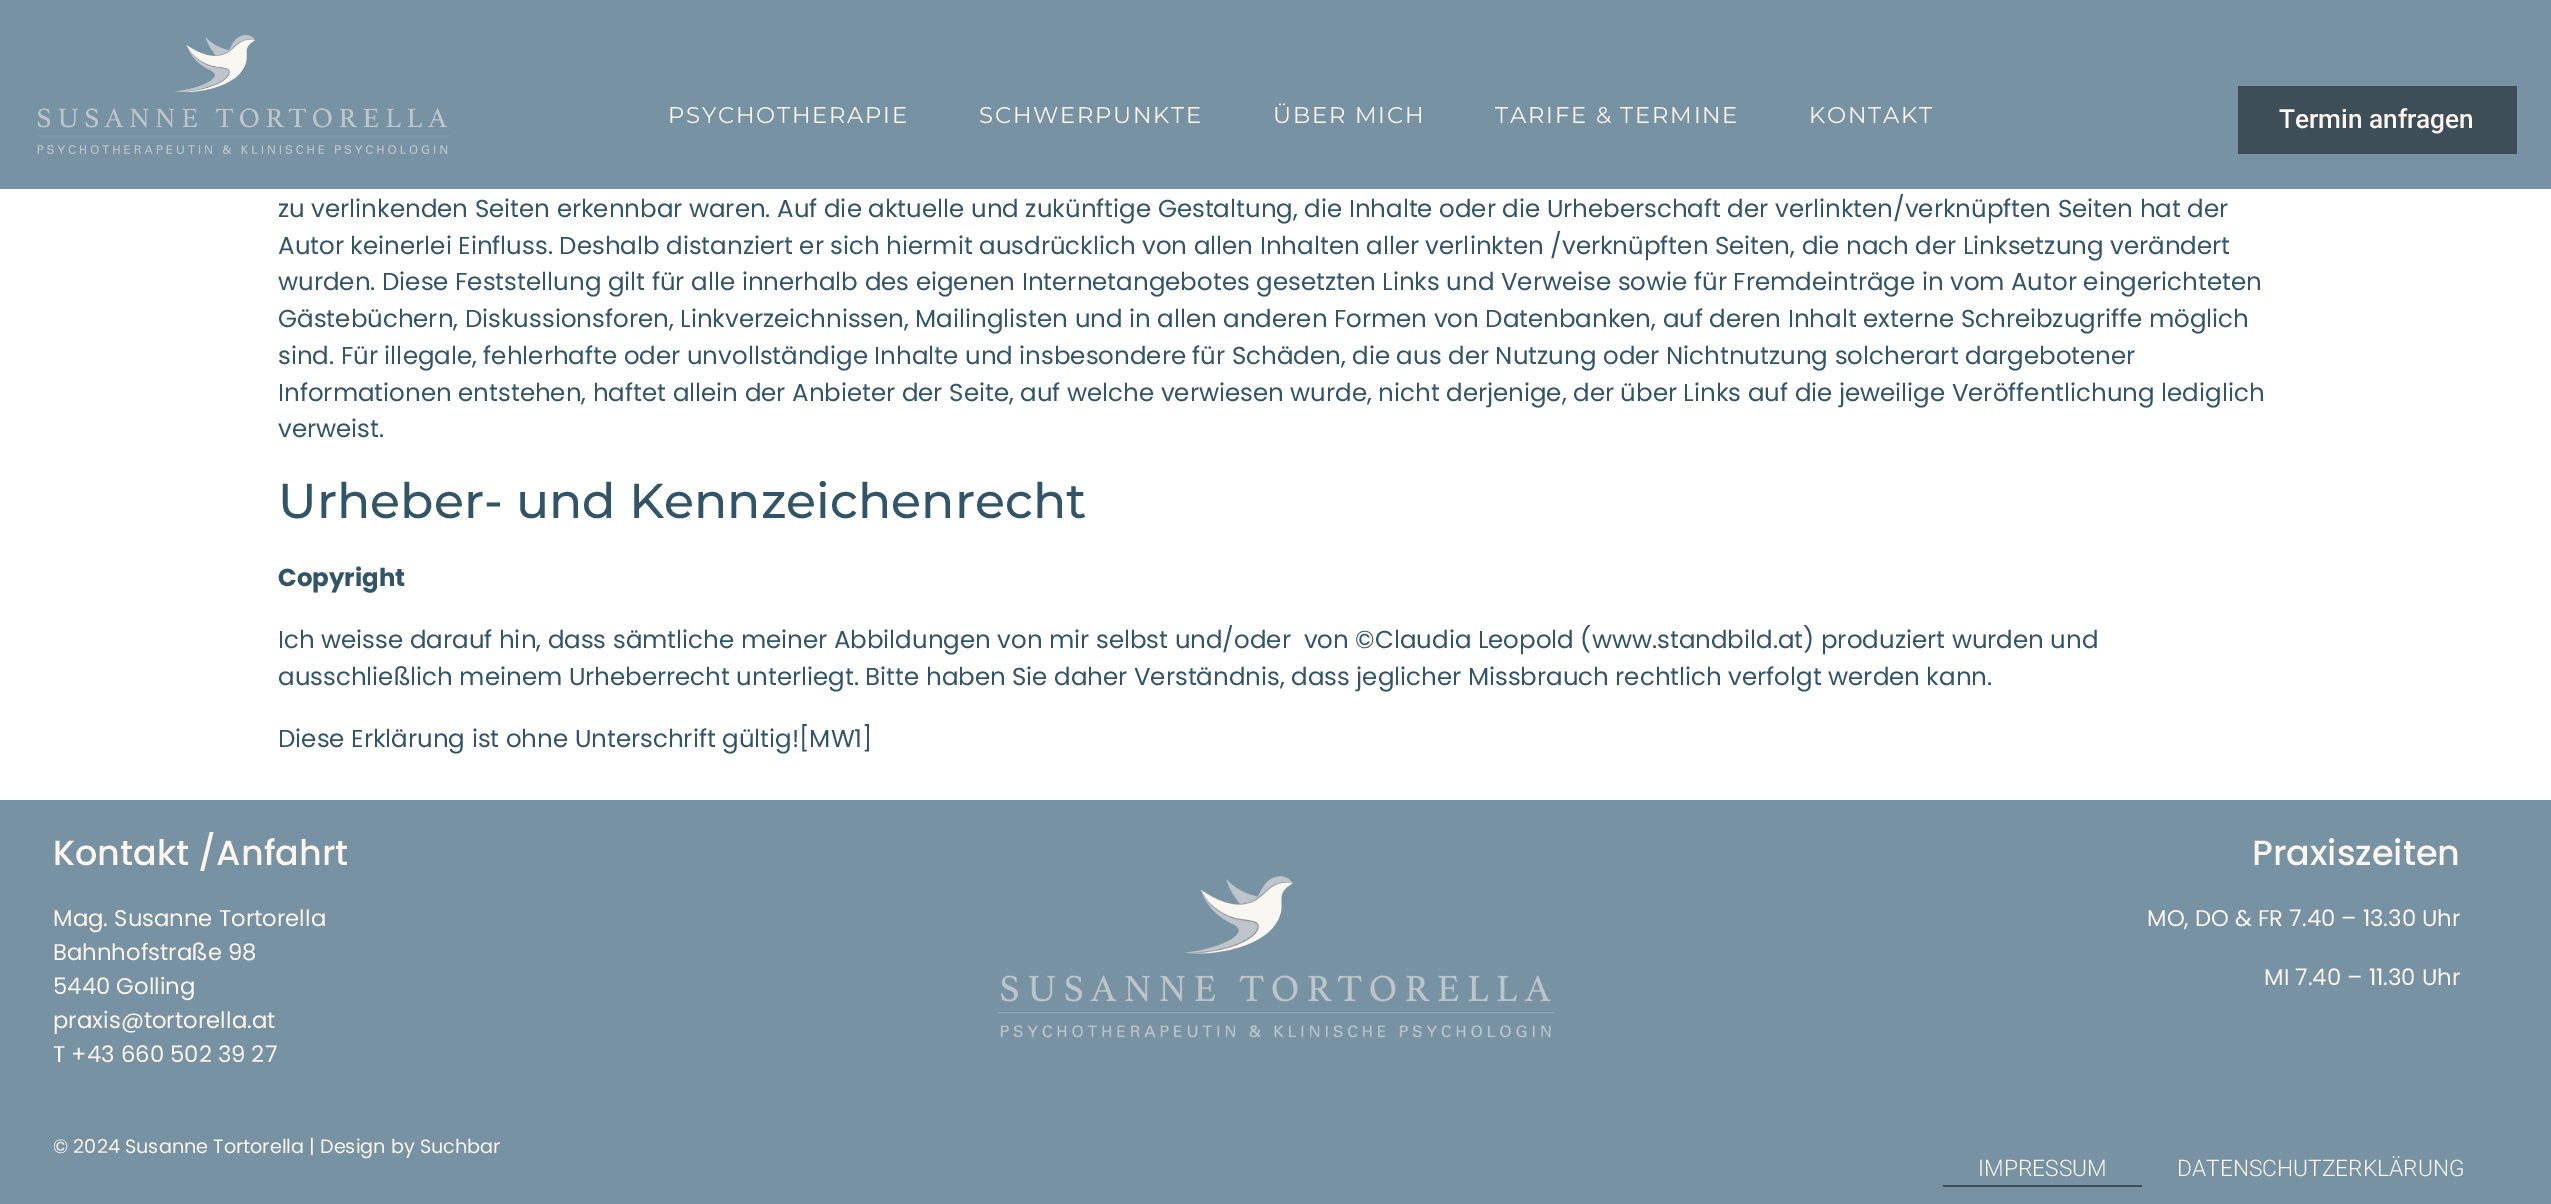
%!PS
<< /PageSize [2551 1204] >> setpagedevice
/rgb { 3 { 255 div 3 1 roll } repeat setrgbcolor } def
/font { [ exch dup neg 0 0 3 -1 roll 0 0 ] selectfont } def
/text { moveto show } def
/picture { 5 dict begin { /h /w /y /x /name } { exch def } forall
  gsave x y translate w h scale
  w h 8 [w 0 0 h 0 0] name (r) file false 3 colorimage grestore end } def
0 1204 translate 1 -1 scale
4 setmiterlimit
255 255 255 rgb
0 0 2551 1204 rectfill
119 147 163 rgb
0 0 2551 189 rectfill
(img_01.rgb) 35 35 415 119 picture
62 78 88 rgb
2238 86 279 68 rectfill
119 147 163 rgb
0 800 2551 404 rectfill
(img_02.rgb) 997 876 557 162 picture
62 78 88 rgb
1943 1185 199 2 rectfill
/Montserrat-Regular 22.75 font
252 246 239 rgb
668 123 moveto 1.75 0 (PSYCHOTHERAPIE) ashow
979 123 moveto 1.75 0 (SCHWERPUNKTE) ashow
1273 123 moveto 1.75 0 (ÜBER MICH) ashow
1495 123 moveto 1.75 0 (TARIFE & TERMINE) ashow
1809 123 moveto 1.75 0 (KONTAKT) ashow
/Roboto-Medium 26.25 font
(Termin anfragen) 2279 128 text
/Poppins-Regular 24.5 font
49 84 104 rgb
(zu verlinkenden Seiten erkennbar waren. Auf die aktuelle und zukünftige Gestaltung, die Inhalte oder die Urheberschaft der verlinkten/verknüpften Seiten hat der) 278 217 text
(Autor keinerlei Einfluss. Deshalb distanziert er sich hiermit ausdrücklich von allen Inhalten aller verlinkten /verknüpften Seiten, die nach der Linksetzung verändert) 278 254 text
(wurden. Diese Feststellung gilt für alle innerhalb des eigenen Internetangebotes gesetzten Links und Verweise sowie für Fremdeinträge in vom Autor eingerichteten) 278 290 text
(Gästebüchern, Diskussionsforen, Linkverzeichnissen, Mailinglisten und in allen anderen Formen von Datenbanken, auf deren Inhalt externe Schreibzugriffe möglich) 278 327 text
(sind. Für illegale, fehlerhafte oder unvollständige Inhalte und insbesondere für Schäden, die aus der Nutzung oder Nichtnutzung solcherart dargebotener) 278 364 text
(Informationen entstehen, haftet allein der Anbieter der Seite, auf welche verwiesen wurde, nicht derjenige, der über Links auf die jeweilige Veröffentlichung lediglich) 278 401 text
(verweist.) 278 437 text
/Montserrat-Medium 49 font
(Urheber- und Kennzeichenrecht) 278 518 text
/Poppins-Bold 24.5 font
(Copyright) 278 586 text
/Poppins-Regular 24.5 font
(Ich weisse darauf hin, dass sämtliche meiner Abbildungen von mir selbst und/oder  von ©Claudia Leopold \(www.standbild.at\) produziert wurden und) 278 648 text
(ausschließlich meinem Urheberrecht unterliegt. Bitte haben Sie daher Verständnis, dass jeglicher Missbrauch rechtlich verfolgt werden kann.) 278 685 text
(Diese Erklärung ist ohne Unterschrift gültig![MW1]) 278 747 text
/Poppins-Medium 35 font
252 246 239 rgb
(Kontakt /Anfahrt) 53 865 text
/Poppins-Regular 22.75 font
(Mag. Susanne Tortorella) 53 926 text
(Bahnhofstraße 98) 53 960 text
(5440 Golling) 53 994 text
(praxis@tortorella.at) 53 1028 text
(T +43 660 502 39 27) 53 1062 text
/Poppins-Medium 35 font
(Praxiszeiten) 2252 865 text
/Poppins-Regular 22.75 font
(MO, DO & FR 7.40 – 13.30 Uhr) 2147 926 text
(MI 7.40 – 11.30 Uhr) 2264 985 text
/Poppins-Regular 19.25 font
(© 2024 Susanne Tortorella | Design by Suchbar) 53 1153 text
/Roboto-Light 22.75 font
(IMPRESSUM) 1978 1176 text
(DATENSCHUTZERKLÄRUNG) 2177 1176 text
showpage
